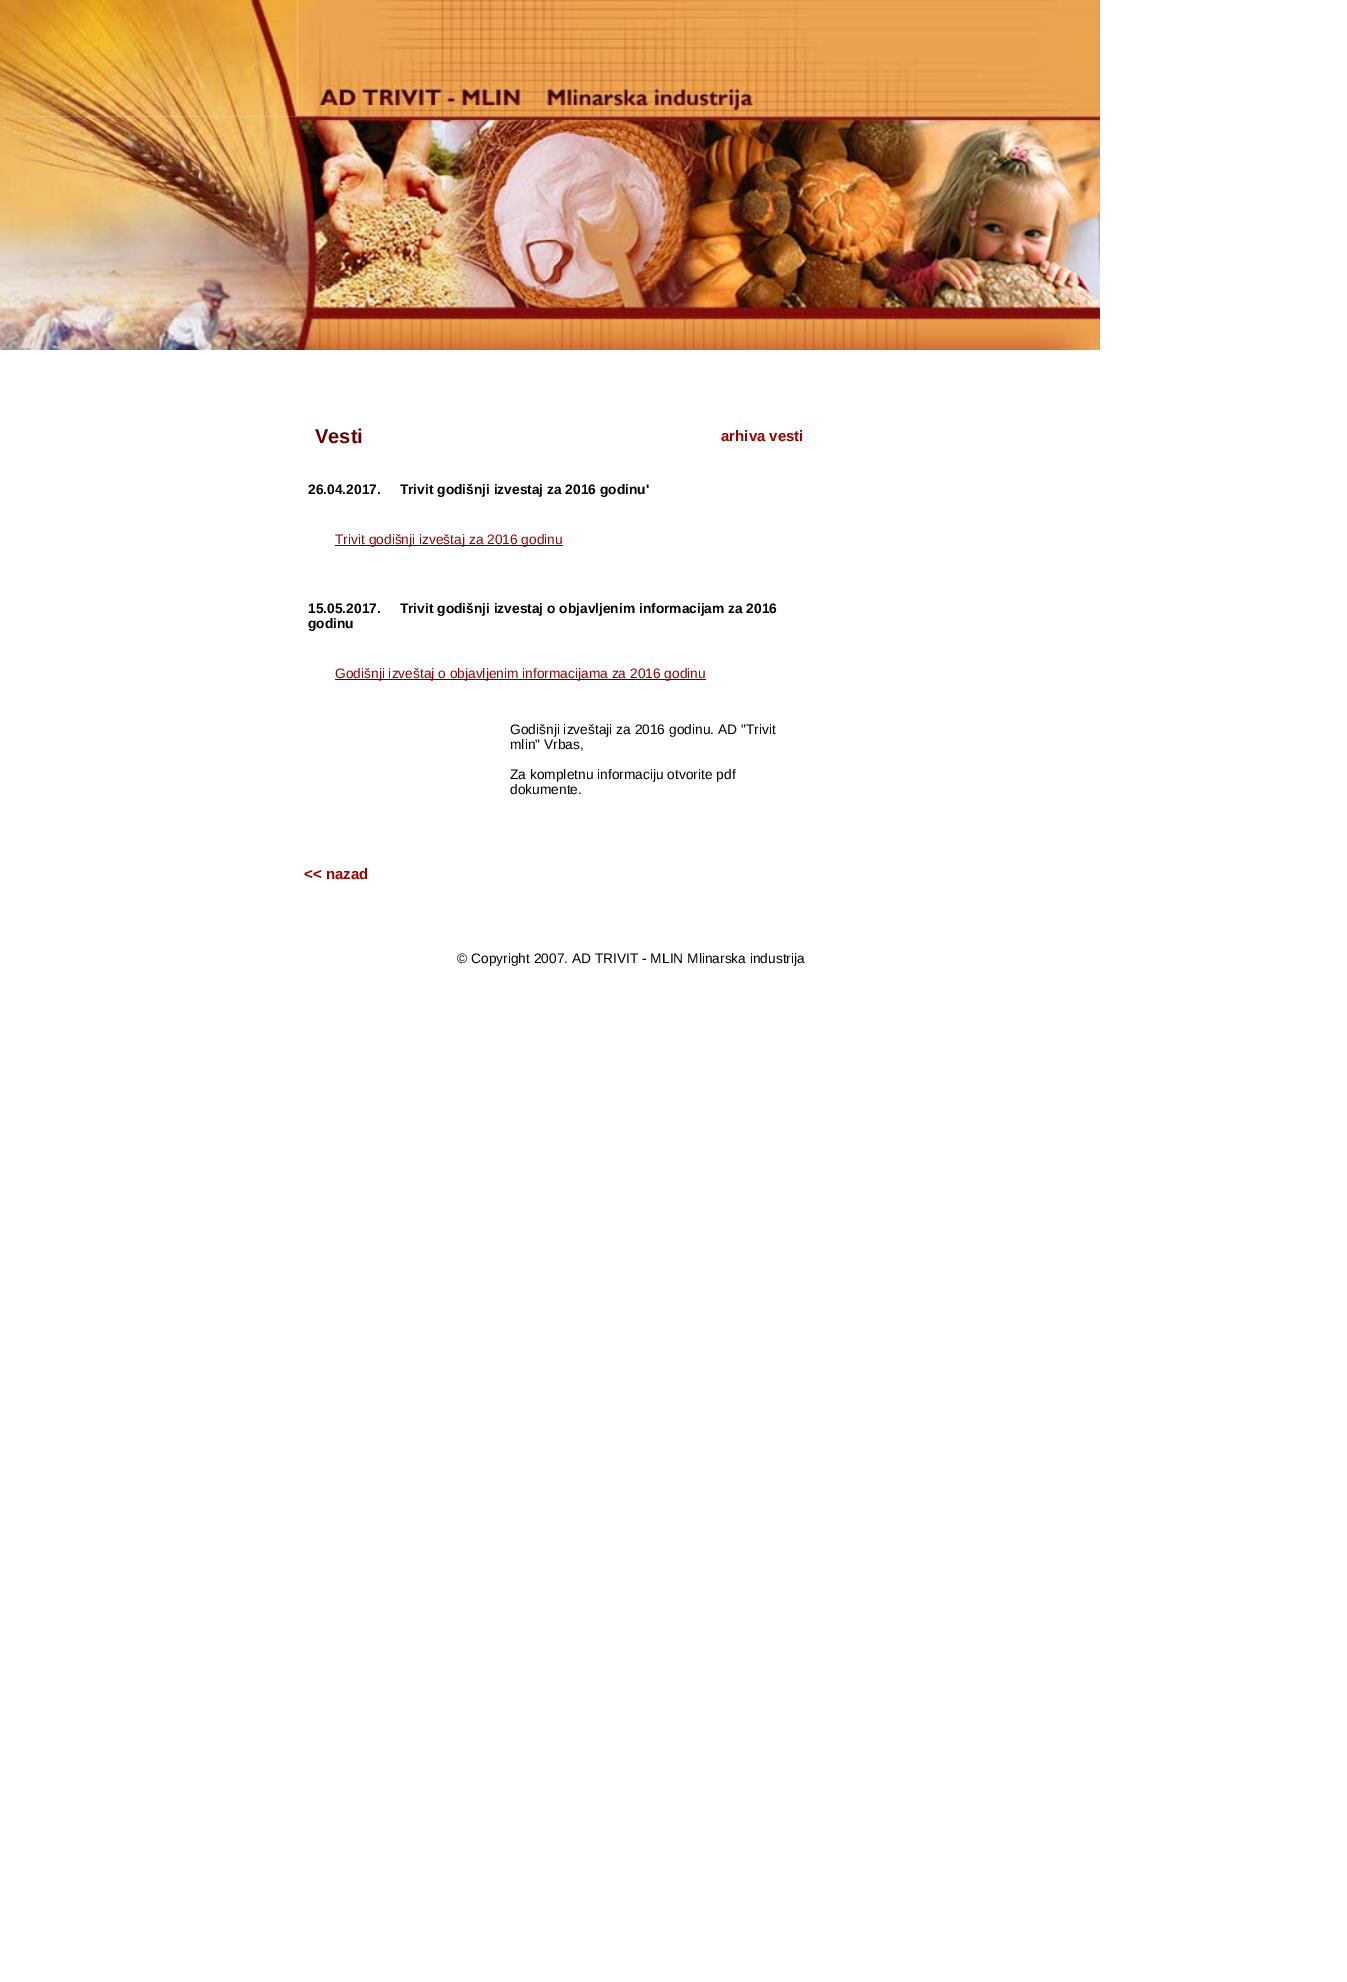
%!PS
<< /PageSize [1347 1982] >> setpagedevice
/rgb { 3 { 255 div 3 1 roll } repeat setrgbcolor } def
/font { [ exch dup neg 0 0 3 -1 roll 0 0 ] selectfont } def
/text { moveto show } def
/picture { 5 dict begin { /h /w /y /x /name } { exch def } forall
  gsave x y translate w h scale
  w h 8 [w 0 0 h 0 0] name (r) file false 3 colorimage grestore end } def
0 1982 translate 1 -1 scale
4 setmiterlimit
255 255 255 rgb
0 0 1347 1982 rectfill
(img_01.rgb) 0 0 298 117 picture
(img_02.rgb) 297 0 803 117 picture
(img_03.rgb) 0 116 1100 204 picture
(img_04.rgb) 0 320 1100 30 picture
0 0 238 rgb
335 545 228 1 rectfill
335 679 371 1 rectfill
/LiberationSans-Bold 20 font
102 0 0 rgb
(Vesti) 315 443 text
/LiberationSans-Bold 15 font
153 0 0 rgb
(arhiva vesti) 721 441 text
/LiberationSans-Bold 13.75 font
0 0 0 rgb
(26.04.2017.     Trivit godišnji izvestaj za 2016 godinu') 308 494 text
/LiberationSans-Regular 13.75 font
153 0 0 rgb
(Trivit godišnji izveštaj za 2016 godinu) 335 544 text
/LiberationSans-Bold 13.75 font
0 0 0 rgb
(15.05.2017.     Trivit godišnji izvestaj o objavljenim informacijam za 2016) 308 613 text
(godinu) 308 628 text
/LiberationSans-Regular 13.75 font
153 0 0 rgb
(Godišnji izveštaj o objavljenim informacijama za 2016 godinu) 335 678 text
0 0 0 rgb
(Godišnji izveštaji za 2016 godinu. AD "Trivit) 510 734 text
(mlin" Vrbas,) 510 749 text
(Za kompletnu informaciju otvorite pdf) 510 779 text
(dokumente.) 510 794 text
/LiberationSans-Bold 15 font
153 0 0 rgb
(<< nazad) 304 879 text
/LiberationSans-Regular 13.75 font
0 0 0 rgb
(© Copyright 2007. AD TRIVIT - MLIN Mlinarska industrija) 457 963 text
showpage
